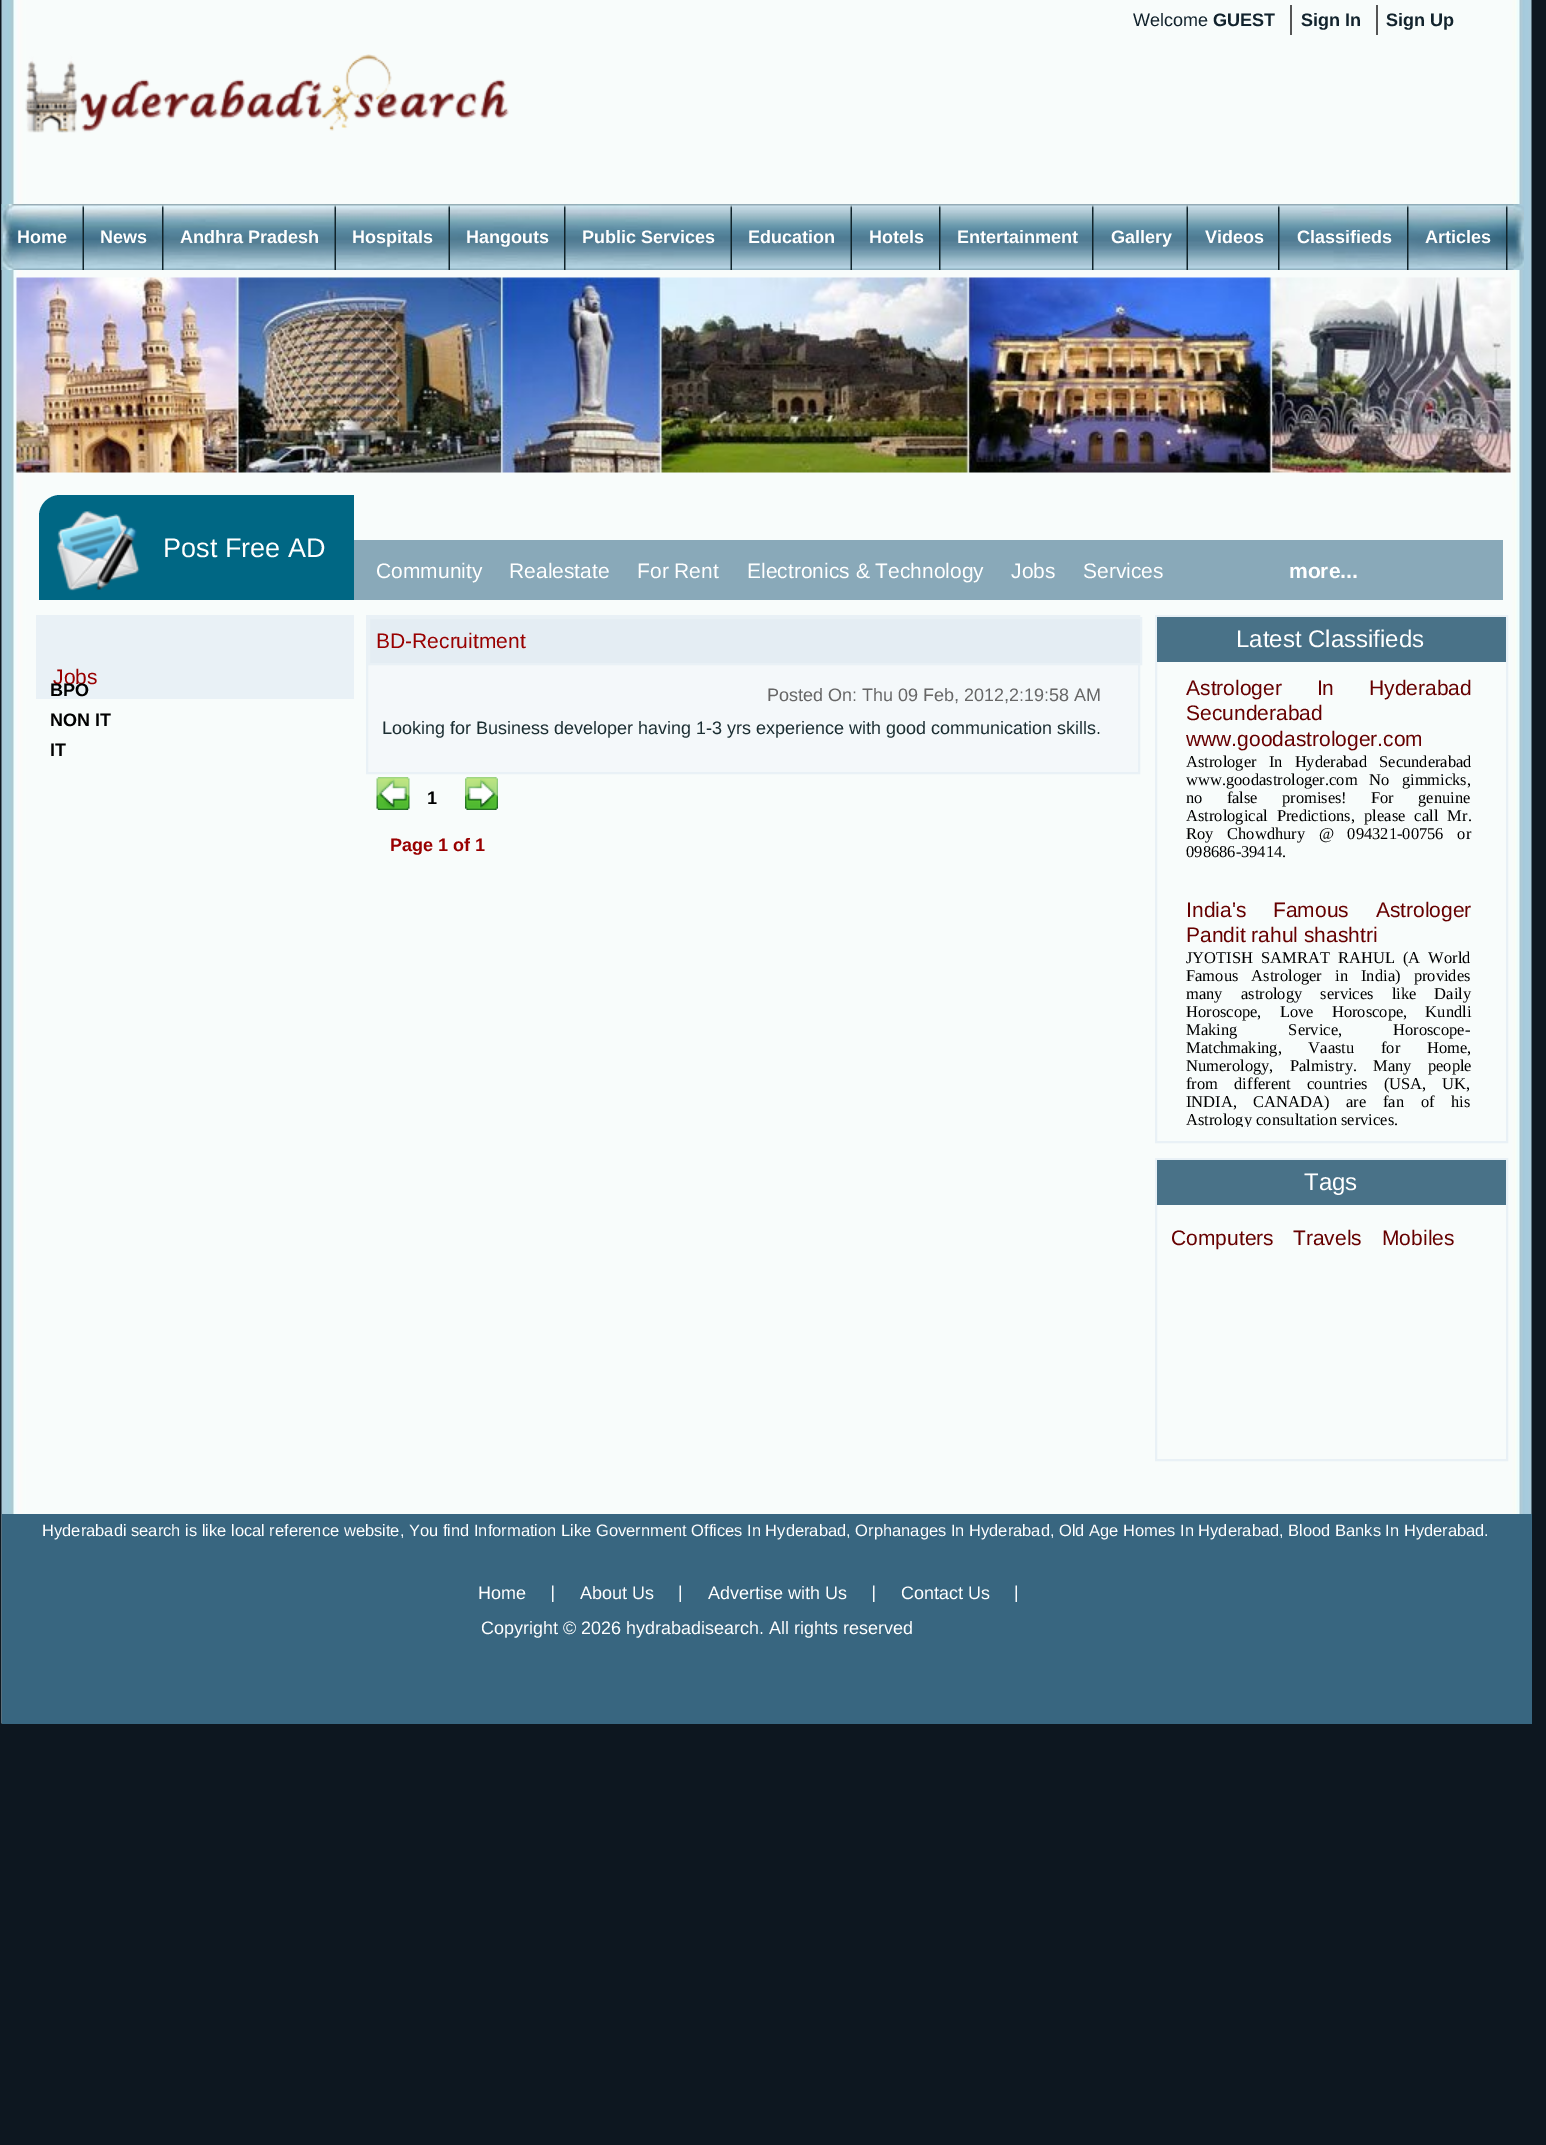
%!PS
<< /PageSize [1546 2145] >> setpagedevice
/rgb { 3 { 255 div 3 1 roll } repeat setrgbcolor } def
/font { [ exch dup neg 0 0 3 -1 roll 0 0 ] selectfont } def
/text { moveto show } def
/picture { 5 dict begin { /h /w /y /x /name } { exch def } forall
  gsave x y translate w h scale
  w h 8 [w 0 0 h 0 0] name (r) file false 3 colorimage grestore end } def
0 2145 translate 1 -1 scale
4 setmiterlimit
13 23 32 rgb
0 0 1546 2145 rectfill
(img_01.rgb) 1 0 1531 1724 picture
85 85 85 rgb
1290 5 2 30 rectfill
1376 5 2 30 rectfill
(img_02.rgb) 25 54 484 79 picture
(img_03.rgb) 1 204 1523 66 picture
(img_04.rgb) 82 205 2 65 picture
(img_05.rgb) 162 205 2 65 picture
(img_06.rgb) 334 205 2 65 picture
(img_07.rgb) 448 205 2 65 picture
(img_08.rgb) 564 205 2 65 picture
(img_09.rgb) 730 205 2 65 picture
(img_09.rgb) 850 205 2 65 picture
(img_10.rgb) 939 205 2 65 picture
(img_10.rgb) 1092 205 2 65 picture
(img_09.rgb) 1186 205 2 65 picture
(img_10.rgb) 1278 205 2 65 picture
(img_11.rgb) 1407 205 2 65 picture
(img_12.rgb) 1506 205 2 65 picture
(img_13.rgb) 16 277 1495 196 picture
0 103 132 rgb
60 495 moveto 294 0 rlineto 0 105 rlineto -315 0 rlineto 0 -84 rlineto 0 -11.5 9.5 -21 21 -21 rcurveto closepath fill
(img_14.rgb) 57 510 83 81 picture
137 169 185 rgb
354 540 1149 60 rectfill
233 241 246 rgb
36 615 318 84 rectfill
244 248 250 rgb
368 665 770 107 rectfill
233 241 246 rgb
2 setlinewidth
367 616 772 157 rectstroke
228 237 243 rgb
369 618 moveto 772 0 rlineto 0 46 rlineto -772 0 rlineto closepath gsave fill grestore
233 241 246 rgb
stroke
(img_15.rgb) 376 777 34 33 picture
(img_16.rgb) 465 777 33 33 picture
1156 616 351 526 rectstroke
73 114 136 rgb
1157 617 349 45 rectfill
233 241 246 rgb
1156 1159 351 301 rectstroke
73 114 136 rgb
1157 1160 349 45 rectfill
56 102 128 rgb
2 1514 1530 210 rectfill
(img_17.rgb) 552 1585 2 17 picture
(img_18.rgb) 679 1585 2 17 picture
(img_17.rgb) 873 1585 2 17 picture
(img_18.rgb) 1015 1585 2 17 picture
/LiberationSans-Regular 18 font
18 35 45 rgb
(Welcome) 1133 26 text
/LiberationSans-Bold 18 font
(GUEST) 1213 26 text
(Sign In) 1301 26 text
(Sign Up) 1386 26 text
255 255 255 rgb
(Home) 17 243 text
(News) 100 243 text
(Andhra Pradesh) 180 243 text
(Hospitals) 352 243 text
(Hangouts) 466 243 text
(Public Services) 582 243 text
(Education) 748 243 text
(Hotels) 869 243 text
(Entertainment) 957 243 text
(Gallery) 1111 243 text
(Videos) 1205 243 text
(Classifieds) 1297 243 text
(Articles) 1425 243 text
/LiberationSans-Regular 27 font
(Post Free AD) 163 557 text
/LiberationSans-Regular 21 font
(Community) 376 578 text
(Realestate) 509 578 text
(For Rent) 637 578 text
(Electronics & Technology) 747 578 text
(Jobs) 1011 578 text
(Services) 1083 578 text
/LiberationSans-Bold 21 font
(more...) 1289 578 text
/LiberationSans-Regular 21 font
153 0 0 rgb
(Jobs) 53 684 text
/LiberationSans-Bold 18 font
0 0 0 rgb
(BPO) 50 696 text
(NON IT) 50 726 text
(IT) 50 756 text
/LiberationSans-Regular 21 font
153 0 0 rgb
(BD-Recruitment) 376 648 text
/LiberationSans-Regular 18 font
102 102 102 rgb
(Posted On: Thu 09 Feb, 2012,2:19:58 AM) 767 701 text
27 46 50 rgb
(Looking for Business developer having 1-3 yrs experience with good communication skills.) 382 734 text
/LiberationSans-Bold 18 font
0 0 0 rgb
(1) 427 804 text
153 0 0 rgb
(Page 1 of 1) 390 851 text
/LiberationSans-Regular 24 font
255 255 255 rgb
(Latest Classifieds) 1236 647 text
/LiberationSans-Regular 21 font
102 0 0 rgb
1186 695 moveto 29 0 32 (Astrologer In Hyderabad) widthshow
(Secunderabad) 1186 720 text
(www.goodastrologer.com) 1186 746 text
/LiberationSerif-Regular 16.5 font
0 0 0 rgb
1186 767 moveto 8 0 32 (Astrologer In Hyderabad Secunderabad) widthshow
1186 785 moveto 8 0 32 (www.goodastrologer.com No gimmicks,) widthshow
1186 803 moveto 20 0 32 (no false promises! For genuine) widthshow
1186 821 moveto 5 0 32 (Astrological Predictions, please call Mr.) widthshow
1186 839 moveto 9.5 0 32 (Roy Chowdhury @ 094321-00756 or) widthshow
(098686-39414.) 1186 857 text
/LiberationSans-Regular 21 font
102 0 0 rgb
1186 917 moveto 21 0 32 (India's Famous Astrologer) widthshow
(Pandit rahul shashtri) 1186 942 text
/LiberationSerif-Regular 16.5 font
0 0 0 rgb
1186 963 moveto 4 0 32 (JYOTISH SAMRAT RAHUL \(A World) widthshow
1186 981 moveto 9 0 32 (Famous Astrologer in India\) provides) widthshow
1186 999 moveto 14 0 32 (many astrology services like Daily) widthshow
1186 1017 moveto 14 0 32 (Horoscope, Love Horoscope, Kundli) widthshow
1186 1035 moveto 47 0 32 (Making Service, Horoscope-) widthshow
1186 1053 moveto 22.5 0 32 (Matchmaking, Vaastu for Home,) widthshow
1186 1071 moveto 12 0 32 (Numerology, Palmistry. Many people) widthshow
1186 1089 moveto 12 0 32 (from different countries \(USA, UK,) widthshow
1186 1107 moveto 12.5 0 32 (INDIA, CANADA\) are fan of his) widthshow
gsave
1172 677 315 450 rectclip
(Astrology consultation services.) 1186 1125 text
grestore
/LiberationSans-Regular 24 font
255 255 255 rgb
(Tags) 1304 1190 text
/LiberationSans-Regular 21 font
102 0 0 rgb
(Computers) 1171 1245 text
(Travels) 1293 1245 text
(Mobiles) 1382 1245 text
/LiberationSans-Regular 16.5 font
255 255 255 rgb
(Hyderabadi search is like local reference website, You find Information Like Government Offices In Hyderabad, Orphanages In Hyderabad, Old Age Homes In Hyderabad, Blood Banks In Hyderabad.) 42 1536 text
/LiberationSans-Regular 18 font
(Home) 478 1599 text
(About Us) 580 1599 text
(Advertise with Us) 708 1599 text
(Contact Us) 901 1599 text
(Copyright © 2026 hydrabadisearch. All rights reserved) 481 1634 text
showpage
